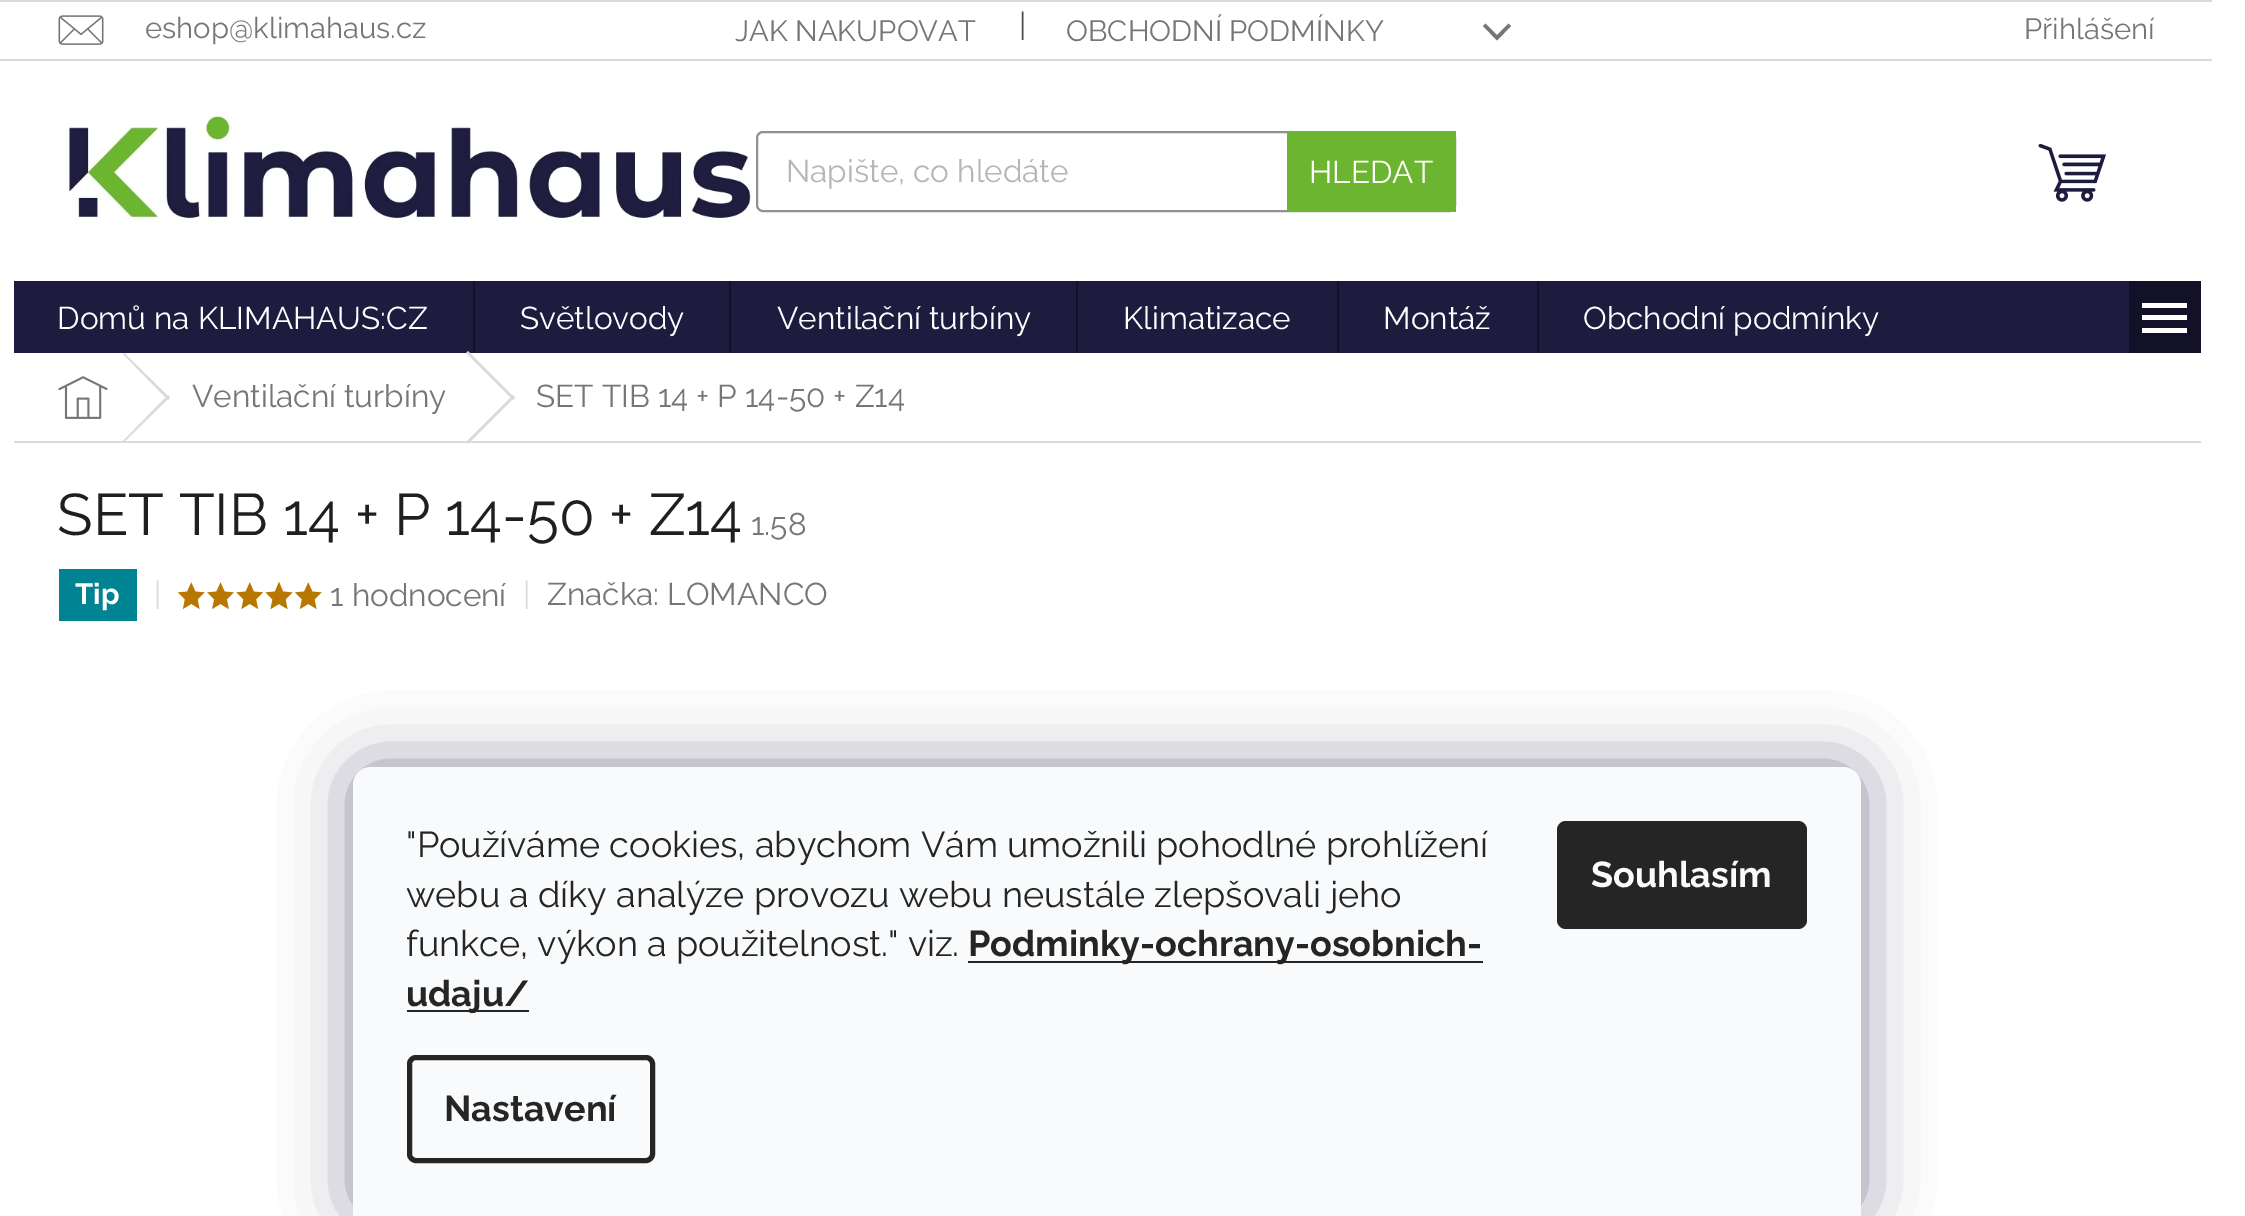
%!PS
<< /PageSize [2245 1216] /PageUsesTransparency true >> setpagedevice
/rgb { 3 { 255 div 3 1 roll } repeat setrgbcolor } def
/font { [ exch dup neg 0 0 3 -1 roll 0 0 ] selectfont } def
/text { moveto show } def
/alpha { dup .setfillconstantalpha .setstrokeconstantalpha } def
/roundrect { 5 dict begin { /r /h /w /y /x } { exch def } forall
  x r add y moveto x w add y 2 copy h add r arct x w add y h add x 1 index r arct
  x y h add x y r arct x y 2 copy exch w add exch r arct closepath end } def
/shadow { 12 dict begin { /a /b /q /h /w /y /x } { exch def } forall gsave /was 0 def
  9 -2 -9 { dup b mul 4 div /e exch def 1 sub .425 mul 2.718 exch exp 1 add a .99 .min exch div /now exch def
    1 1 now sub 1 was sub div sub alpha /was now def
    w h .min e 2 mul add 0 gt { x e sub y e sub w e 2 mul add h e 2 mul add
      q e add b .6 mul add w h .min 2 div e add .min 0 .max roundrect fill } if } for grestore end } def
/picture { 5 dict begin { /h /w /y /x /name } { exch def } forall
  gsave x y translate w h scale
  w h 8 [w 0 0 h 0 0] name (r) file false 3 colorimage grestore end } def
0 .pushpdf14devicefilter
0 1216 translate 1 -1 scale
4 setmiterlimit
255 255 255 rgb
0 0 2245 1216 rectfill
218 218 218 rgb
0 0 2212 2 rectfill
0 59 2212 2 rectfill
(img_01.rgb) 58 15 46 30 picture
118 118 118 rgb
1483 26 moveto 2.5 -2.5 rlineto 11.5 11.5 rlineto 11.5 -11.5 rlineto 2.5 2.5 rlineto -14 14.5 rlineto closepath fill
(img_02.rgb) 67 115 684 106 picture
145 145 145 rgb
2 setlinewidth
757 132 698 79 6 roundrect stroke
108 181 48 rgb
1287 131 169 81 rectfill
(img_03.rgb) 2038 143 68 59 picture
30 28 62 rgb
14 281 2115 72 rectfill
19 17 39 rgb
473 281 2 72 rectfill
729 281 2 72 rectfill
1076 281 2 72 rectfill
1337 281 2 72 rectfill
1537 281 2 72 rectfill
2129 281 72 72 rectfill
255 255 255 rgb
2142 333 moveto 45 0 rlineto 0 -5 rlineto -45 0 rlineto closepath 2142 320 moveto 45 0 rlineto 0 -5 rlineto -45 0 rlineto closepath 2142 303 moveto 0 5 rlineto 45 0 rlineto 0 -5 rlineto closepath fill
218 218 218 rgb
14 441 2187 2 rectfill
(img_04.rgb) 58 376 50 43 picture
123 354 moveto 1 -1 rlineto 46 45 rlineto -2 2 rlineto closepath fill
168 395 moveto 2 2 rlineto -46 45 rlineto -1 -1 rlineto closepath fill
466 353 moveto 2 -2 rlineto 47 47 rlineto -2 2 rlineto closepath fill
513 395 moveto 2 2 rlineto -47 47 rlineto -2 -2 rlineto closepath fill
0 131 146 rgb
59 569 78 52 rectfill
(img_05.rgb) 177 582 28 28 picture
(img_06.rgb) 207 582 27 28 picture
(img_07.rgb) 236 582 28 28 picture
184 120 0 rgb
279 582 moveto -4 9.5 rlineto -9.5 1 rlineto 7 7 rlineto -2 9.5 rlineto 8.5 -5 rlineto 8.5 5 rlineto -2 -9.5 rlineto 7 -7 rlineto -9.5 -1 rlineto closepath fill
(img_05.rgb) 294 582 28 28 picture
27 25 57 rgb
353 767 1508 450 18 34 0.5 shadow
248 250 251 rgb
371 767 moveto 1472 0 rlineto 10 0 18 8 18 18 rcurveto 0 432 rlineto -1508 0 rlineto 0 -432 rlineto 0 -10 8 -18 18 -18 rcurveto closepath fill
37 37 37 rgb
968 961 515 2 rectfill
407 1010 122 2 rectfill
5 setlinewidth
409.5 1057.5 243 103 6.5 roundrect stroke
1557 821 250 108 9 roundrect fill
/Raleway-Regular 29.25 font
118 118 118 rgb
(eshop@klimahaus.cz) 145 38 text
(JAK NAKUPOVAT) 735 41 text
/Raleway-Regular 31.5 font
77 77 77 rgb
(|) 1019 36 text
/Raleway-Regular 29.25 font
118 118 118 rgb
(OBCHODNÍ PODMÍNKY) 1066 41 text
(Přihlášení) 2024 39 text
/Raleway-Regular 31.5 font
182 182 182 rgb
(Napište, co hledáte) 786 182 text
255 255 255 rgb
(HLEDAT) 1309 183 text
(Domů na KLIMAHAUS:CZ) 57 329 text
(Světlovody) 520 329 text
(Ventilační turbíny) 777 329 text
(Klimatizace) 1123 329 text
(Montáž) 1383 329 text
(Obchodní podmínky) 1583 329 text
118 118 118 rgb
(Ventilační turbíny) 192 407 text
(SET TIB 14 + P 14-50 + Z14) 536 407 text
/Raleway-Regular 58.5 font
31 31 31 rgb
(SET TIB 14 + P 14-50 + Z14) 57 535 text
/Raleway-Regular 31.5 font
118 118 118 rgb
(1.58) 751 535 text
/Raleway-Bold 29.25 font
255 255 255 rgb
(Tip) 75 604 text
/Raleway-Regular 31.5 font
218 218 218 rgb
(|) 154 605 text
118 118 118 rgb
(1 hodnocení) 330 606 text
218 218 218 rgb
(|) 523 605 text
118 118 118 rgb
(Značka: LOMANCO) 547 605 text
/Raleway-Regular 36 font
37 37 37 rgb
("Používáme cookies, abychom Vám umožnili pohodlné prohlížení) 406 857 text
(webu a díky analýze provozu webu neustále zlepšovali jeho) 406 907 text
(funkce, výkon a použitelnost." viz.) 406 956 text
/Raleway-Bold 36 font
(Podminky-ochrany-osobnich-) 968 956 text
(udaju/) 406 1006 text
(Nastavení) 444 1121 text
248 250 251 rgb
(Souhlasím) 1591 887 text
.poppdf14devicefilter showpage
